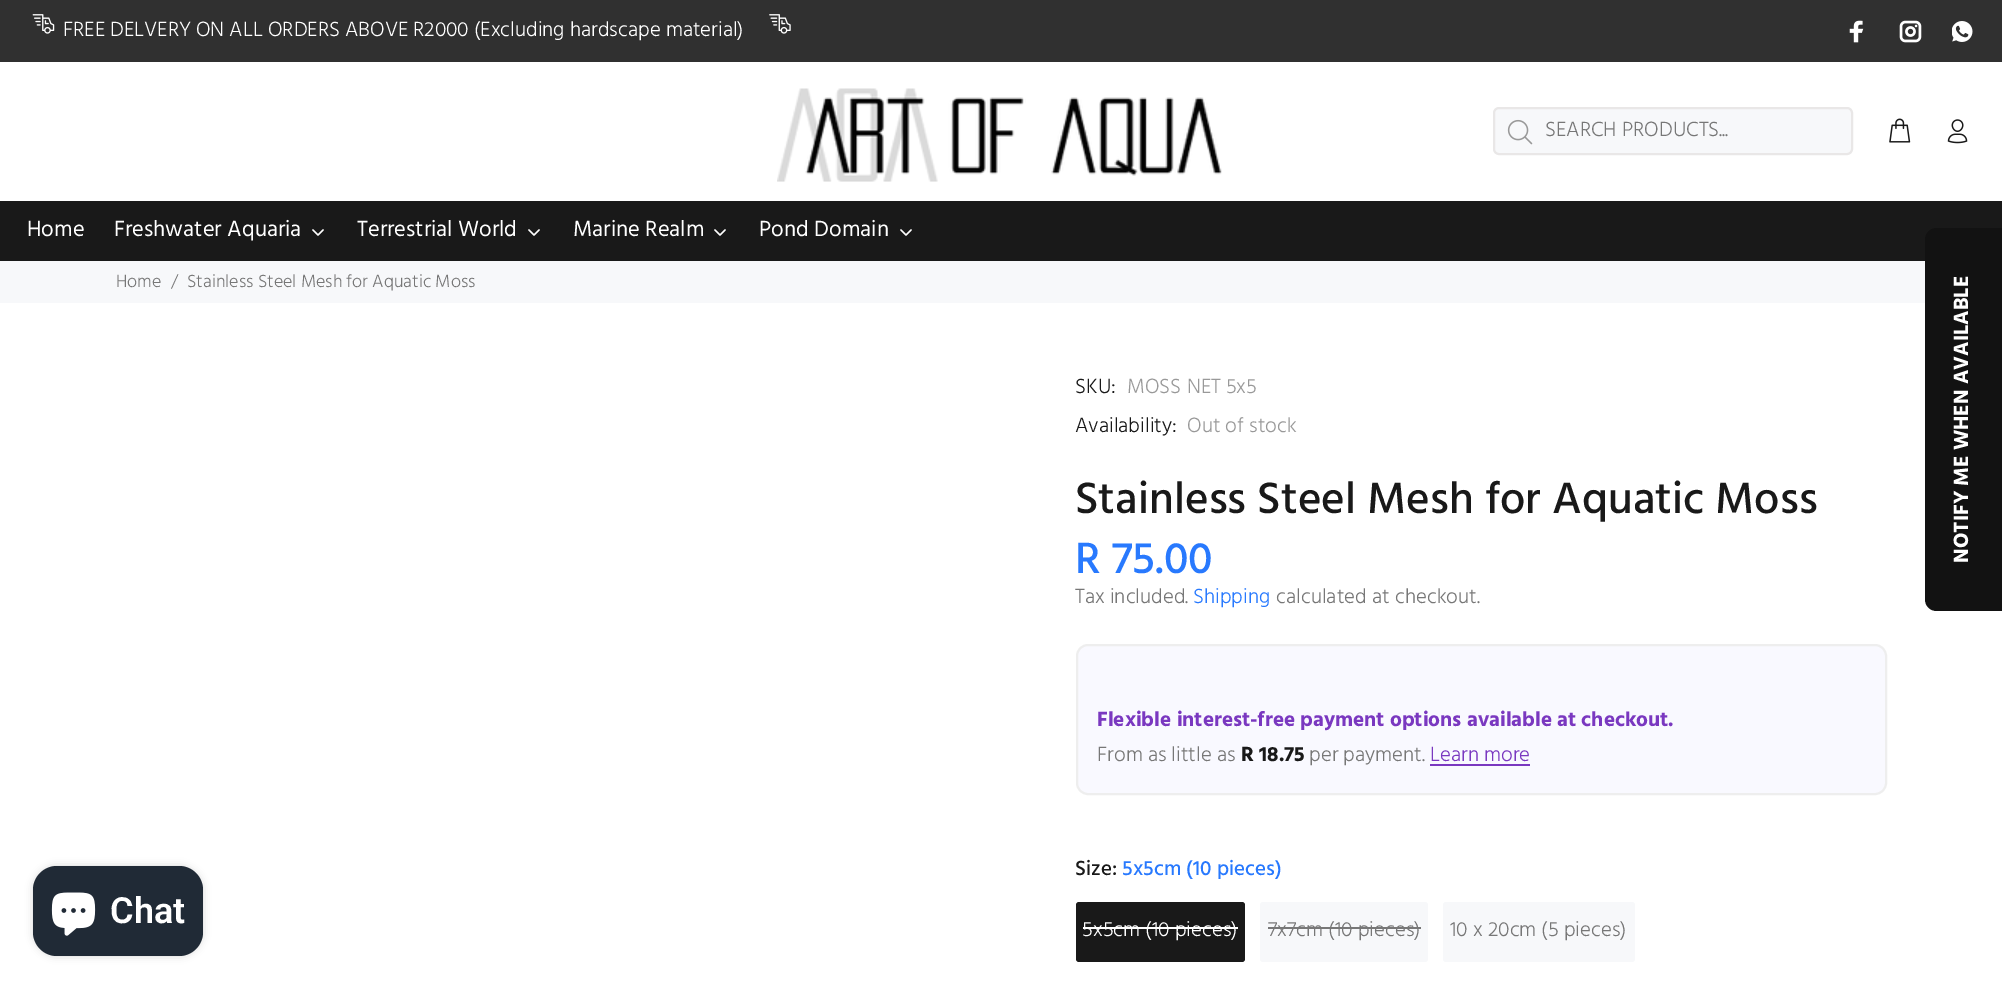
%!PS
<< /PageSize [2002 986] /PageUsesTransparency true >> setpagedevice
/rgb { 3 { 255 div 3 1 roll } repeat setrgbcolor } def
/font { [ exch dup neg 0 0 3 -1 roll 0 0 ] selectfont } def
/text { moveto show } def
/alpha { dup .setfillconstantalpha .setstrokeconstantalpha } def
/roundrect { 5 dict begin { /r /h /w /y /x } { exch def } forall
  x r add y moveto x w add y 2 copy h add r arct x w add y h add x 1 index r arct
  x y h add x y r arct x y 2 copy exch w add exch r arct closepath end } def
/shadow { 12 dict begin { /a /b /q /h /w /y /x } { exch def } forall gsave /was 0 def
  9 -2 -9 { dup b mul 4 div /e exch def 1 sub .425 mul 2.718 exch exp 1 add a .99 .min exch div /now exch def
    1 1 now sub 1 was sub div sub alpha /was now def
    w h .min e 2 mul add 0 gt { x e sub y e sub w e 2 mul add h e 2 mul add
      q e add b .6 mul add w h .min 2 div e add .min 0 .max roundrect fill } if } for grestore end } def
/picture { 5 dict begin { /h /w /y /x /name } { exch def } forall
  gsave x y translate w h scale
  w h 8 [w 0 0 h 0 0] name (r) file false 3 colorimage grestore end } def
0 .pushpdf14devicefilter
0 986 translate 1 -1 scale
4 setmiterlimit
255 255 255 rgb
0 0 2002 986 rectfill
48 48 48 rgb
0 0 2002 62 rectfill
(img_01.rgb) 32 14 23 20 picture
(img_02.rgb) 769 14 22 20 picture
(img_03.rgb) 1849 20 15 23 picture
(img_04.rgb) 1899 20 23 23 picture
(img_05.rgb) 1952 21 21 21 picture
(img_06.rgb) 777 88 445 94 picture
247 248 250 rgb
1494 108 358 46 5 roundrect gsave fill grestore
233 231 231 rgb
2 setlinewidth
stroke
(img_07.rgb) 1507 119 26 26 picture
(img_08.rgb) 1889 118 22 25 picture
(img_09.rgb) 1947 119 21 25 picture
25 25 25 rgb
0 201 2002 60 rectfill
(img_10.rgb) 312 229 12 7 picture
(img_10.rgb) 528 229 12 7 picture
(img_10.rgb) 714 229 12 7 picture
(img_10.rgb) 900 229 12 7 picture
247 248 250 rgb
0 261 1925 42 rectfill
249 249 255 rgb
1077 645 809 149 11 roundrect gsave fill grestore
238 238 238 rgb
stroke
122 56 192 rgb
1430 764 100 2 rectfill
25 25 25 rgb
1076 902 169 60 3 roundrect fill
255 255 255 rgb
1083 927 155 2 rectfill
247 248 250 rgb
1260 902 168 60 3 roundrect fill
119 119 119 rgb
1268 927 153 2 rectfill
247 248 250 rgb
1443 902 192 60 3 roundrect fill
18 18 18 rgb
1925 599 moveto 0 -359 rlineto 0 -7 5 -12 12 -12 rcurveto 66 0 rlineto 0 383 rlineto -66 0 rlineto -7 0 -12 -5 -12 -12 rcurveto closepath fill
0 0 0 rgb
33 866 170 90 24 4 0.15 shadow
32 42 54 rgb
33 866 170 90 24 roundrect fill
(img_11.rgb) 51 892 45 44 picture
/Hind-Light 21 font
255 255 255 rgb
(FREE DELVERY ON ALL ORDERS ABOVE R2000 \(Excluding hardscape material\)) 63 36 text
119 119 119 rgb
(SEARCH PRODUCTS...) 1545 136 text
/Hind-Regular 22.5 font
255 255 255 rgb
(Home) 27 236 text
(Freshwater Aquaria) 114 236 text
(Terrestrial World) 357 236 text
(Marine Realm) 573 236 text
(Pond Domain) 759 236 text
/Hind-Light 18 font
119 119 119 rgb
(Home) 116 287 text
(/) 171 287 text
(Stainless Steel Mesh for Aquatic Moss) 187 287 text
/Hind-Light 21 font
25 25 25 rgb
(SKU:) 1075 393 text
153 153 153 rgb
(MOSS NET 5x5) 1127 393 text
25 25 25 rgb
(Availability:) 1075 432 text
153 153 153 rgb
(Out of stock) 1187 432 text
/Hind-Medium 45 font
25 25 25 rgb
1075 513 moveto 0.05 0 (Stainless Steel Mesh for Aquatic Moss) ashow
40 121 254 rgb
(R 75.00) 1075 573 text
/Hind-Light 21 font
119 119 119 rgb
(Tax included.) 1075 603 text
40 121 254 rgb
(Shipping) 1193 603 text
119 119 119 rgb
(calculated at checkout.) 1276 603 text
/Hind-Bold 21 font
122 56 192 rgb
(Flexible interest-free payment options available at checkout.) 1097 726 text
/Hind-Light 21 font
119 119 119 rgb
(From as little as) 1097 761 text
/Hind-Bold 21 font
25 25 25 rgb
(R 18.75) 1241 761 text
/Hind-Light 21 font
119 119 119 rgb
(per payment.) 1309 761 text
122 56 192 rgb
(Learn more) 1430 761 text
/Hind-Medium 21 font
25 25 25 rgb
(Size:) 1075 875 text
40 121 254 rgb
(5x5cm \(10 pieces\)) 1122 875 text
/Hind-Light 21 font
255 255 255 rgb
(5x5cm \(10 pieces\)) 1082 936 text
119 119 119 rgb
(7x7cm \(10 pieces\)) 1268 936 text
(10 x 20cm \(5 pieces\)) 1450 936 text
/Hind-Bold 21 font
255 255 255 rgb
gsave 1968 563 translate -90 rotate 0 0 moveto (NOTIFY ME WHEN AVAILABLE) show grestore
/Roboto-SemiBold 36 font
(Chat) 110 923 text
.poppdf14devicefilter showpage
